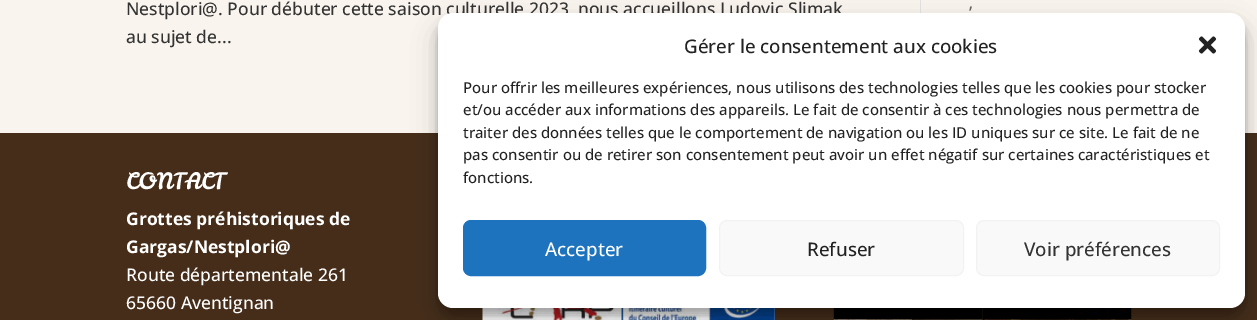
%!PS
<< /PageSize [1257 320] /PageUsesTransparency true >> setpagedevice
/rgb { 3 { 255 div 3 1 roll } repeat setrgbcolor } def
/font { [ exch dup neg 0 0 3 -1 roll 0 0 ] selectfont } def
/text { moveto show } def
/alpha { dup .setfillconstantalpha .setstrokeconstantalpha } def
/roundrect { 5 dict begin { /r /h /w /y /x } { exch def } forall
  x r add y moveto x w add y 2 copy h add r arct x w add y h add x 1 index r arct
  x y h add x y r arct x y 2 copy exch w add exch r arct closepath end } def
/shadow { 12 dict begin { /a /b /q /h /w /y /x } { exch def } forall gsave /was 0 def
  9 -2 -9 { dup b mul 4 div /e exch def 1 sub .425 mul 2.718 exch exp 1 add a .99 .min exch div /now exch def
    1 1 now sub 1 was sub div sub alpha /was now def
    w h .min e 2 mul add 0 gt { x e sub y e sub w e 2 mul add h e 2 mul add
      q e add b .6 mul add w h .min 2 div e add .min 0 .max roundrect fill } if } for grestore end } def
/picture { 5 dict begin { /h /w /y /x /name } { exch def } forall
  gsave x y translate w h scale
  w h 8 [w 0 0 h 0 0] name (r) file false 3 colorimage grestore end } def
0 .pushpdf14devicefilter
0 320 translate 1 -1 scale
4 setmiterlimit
249 244 237 rgb
0 0 1257 320 rectfill
226 226 226 rgb
920 0 1 13 rectfill
70 45 26 rgb
0 133 1257 187 rectfill
(img_01.rgb) 482 308 293 12 picture
(img_02.rgb) 833 308 150 12 picture
(img_03.rgb) 982 308 150 12 picture
(img_04.rgb) 833 319 150 1 picture
(img_05.rgb) 982 319 150 1 picture
0 0 0 rgb
438 20 807 295 15 4 0.23 shadow
438 25 807 295 15 12.5 0.19 shadow
/OpenSans-Medium 17.5 font
51 51 51 rgb
(Nestplori@. Pour débuter cette saison culturelle 2023, nous accueillons Ludovic Slimak) 126 15 text
(au sujet de...) 126 43 text
102 102 102 rgb
(’) 969 19 text
/LeckerliOne-Regular 22.5 font
255 255 255 rgb
(CONTACT) 126 189 text
/OpenSans-Bold 17.5 font
(Grottes préhistoriques de) 126 225 text
(Gargas/Nestplori@) 126 253 text
/OpenSans-Medium 17.5 font
(Route départementale 261) 126 281 text
(65660 Aventignan) 126 309 text
438 13 807 295 15 roundrect fill
/OpenSans-Medium 18.75 font
34 34 34 rgb
(Gérer le consentement aux cookies) 684 53 text
(img_06.rgb) 1198 36 19 18 picture
/OpenSans-Medium 15 font
(Pour offrir les meilleures expériences, nous utilisons des technologies telles que les cookies pour stocker) 463 93 text
(et/ou accéder aux informations des appareils. Le fait de consentir à ces technologies nous permettra de) 463 115 text
(traiter des données telles que le comportement de navigation ou les ID uniques sur ce site. Le fait de ne) 463 138 text
(pas consentir ou de retirer son consentement peut avoir un effet négatif sur certaines caractéristiques et) 463 160 text
(fonctions.) 463 183 text
30 115 190 rgb
463.5 220.5 242 55 7.5 roundrect gsave fill grestore
stroke
/OpenSans-Medium 18.75 font
255 255 255 rgb
(Accepter) 545 256 text
249 249 249 rgb
719.5 220.5 244 55 7.5 roundrect gsave fill grestore
242 242 242 rgb
stroke
34 34 34 rgb
(Refuser) 807 256 text
249 249 249 rgb
976.5 220.5 243 55 7.5 roundrect gsave fill grestore
242 242 242 rgb
stroke
51 51 51 rgb
(Voir préférences) 1024 256 text
.poppdf14devicefilter showpage
